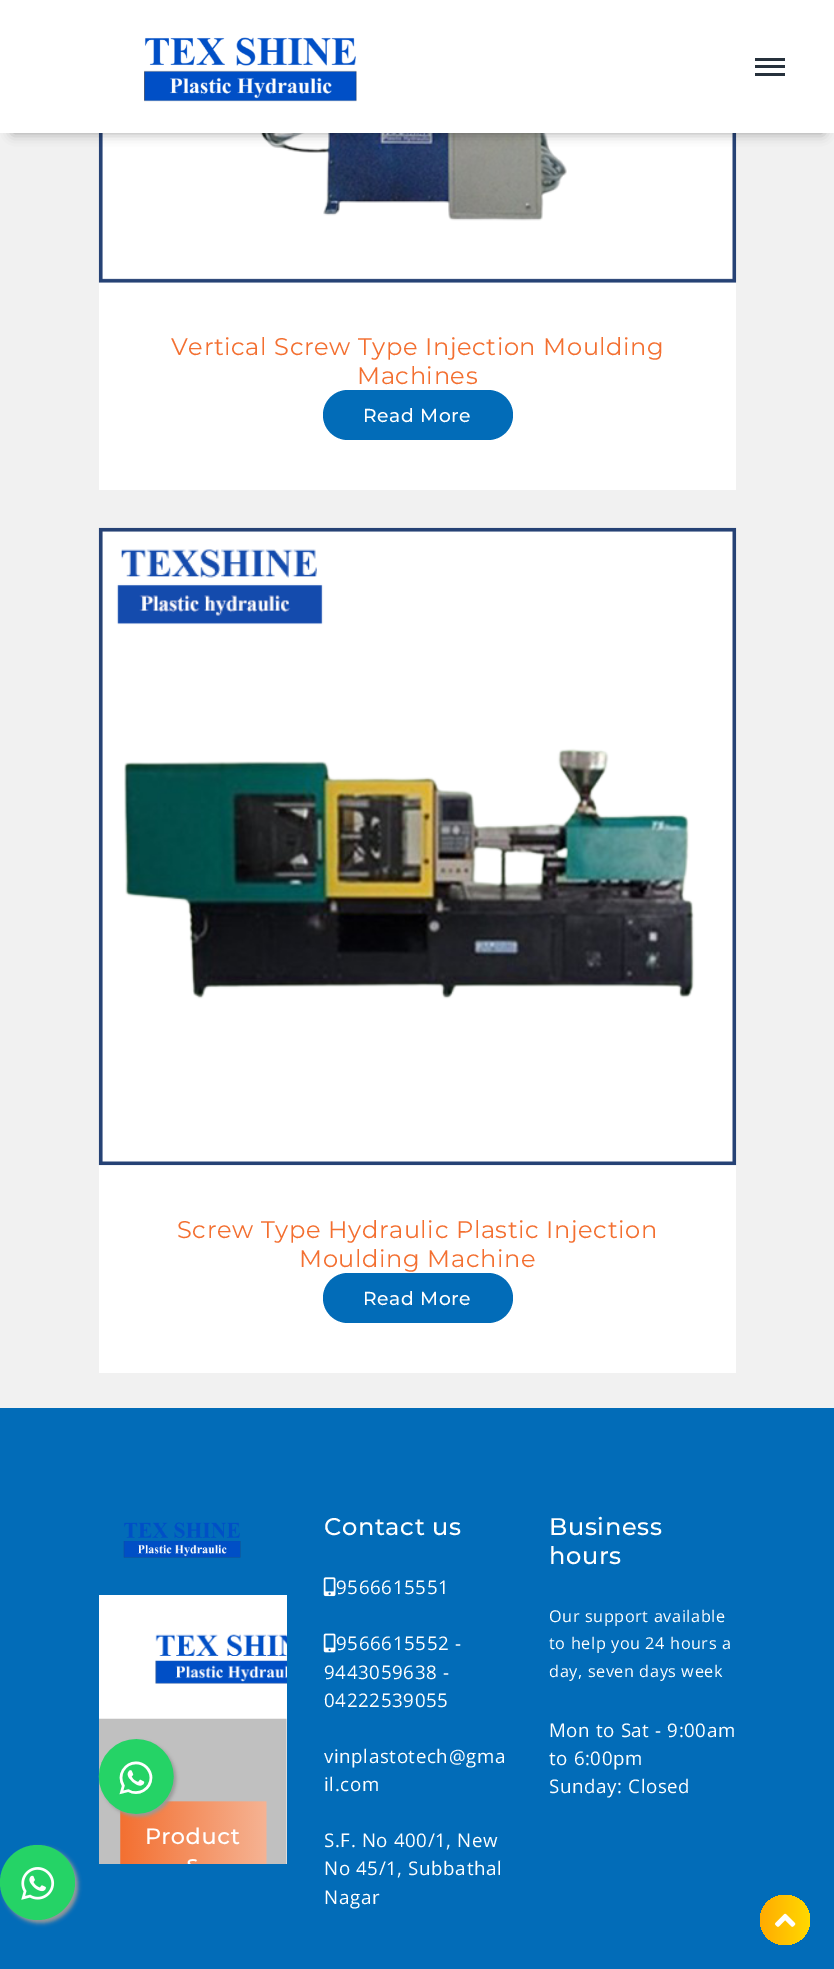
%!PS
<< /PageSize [834 1969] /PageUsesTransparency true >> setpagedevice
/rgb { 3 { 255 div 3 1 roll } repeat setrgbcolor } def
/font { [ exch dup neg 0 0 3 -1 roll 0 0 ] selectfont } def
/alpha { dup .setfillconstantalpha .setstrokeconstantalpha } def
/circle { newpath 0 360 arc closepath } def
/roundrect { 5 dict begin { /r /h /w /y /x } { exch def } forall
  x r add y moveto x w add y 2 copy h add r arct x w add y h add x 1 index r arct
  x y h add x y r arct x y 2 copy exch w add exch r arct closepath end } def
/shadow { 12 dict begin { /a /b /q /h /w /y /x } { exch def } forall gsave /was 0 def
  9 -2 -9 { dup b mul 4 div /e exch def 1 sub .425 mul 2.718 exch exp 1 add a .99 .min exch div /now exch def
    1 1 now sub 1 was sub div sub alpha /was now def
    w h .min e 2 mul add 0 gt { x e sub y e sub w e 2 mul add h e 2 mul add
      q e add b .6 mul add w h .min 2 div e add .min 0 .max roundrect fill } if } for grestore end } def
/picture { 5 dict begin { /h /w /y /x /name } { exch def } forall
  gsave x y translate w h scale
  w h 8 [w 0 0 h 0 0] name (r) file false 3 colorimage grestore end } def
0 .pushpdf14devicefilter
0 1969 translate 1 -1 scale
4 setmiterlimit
2 108 184 rgb
0 0 834 1969 rectfill
241 241 241 rgb
0 133 834 1275 rectfill
255 255 255 rgb
99 282 637 208 rectfill
(img_02.rgb) 98 133 639 150 picture
0 0 0 rgb
13 25 810 108 0 6 0.35 shadow
255 255 255 rgb
0 0 834 133 rectfill
(img_01.rgb) 144 37 213 65 picture
38 49 60 rgb
755 58 30 3 rectfill
755 65 30 3 rectfill
755 73 30 3 rectfill
2 108 184 rgb
323 390 190 50 25 roundrect fill
255 255 255 rgb
99 1165 637 208 rectfill
(img_03.rgb) 98 527 639 639 picture
2 108 184 rgb
323 1273 190 50 25 roundrect fill
153 153 153 rgb
3 1848 75 75 37.5 2 1 shadow
37 211 102 rgb
37.5 1882.5 37.5 circle fill
(img_04.rgb) 21 1867 34 33 picture
(img_05.rgb) 123 1522 118 36 picture
(img_06.rgb) 98 1595 189 269 picture
(img_07.rgb) 323 1577 13 20 picture
(img_08.rgb) 323 1633 13 20 picture
gsave 785 1920 25 circle clip newpath
<< /ShadingType 2 /ColorSpace /DeviceRGB /Coords [760 1920 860 1920] /Extend [true true] /Function << /FunctionType 3 /Domain [0 1] /Functions [<< /FunctionType 2 /Domain [0 1] /C0 [1 0.671 0.008] /C1 [1 0.855 0] /N 1 >> << /FunctionType 2 /Domain [0 1] /C0 [1 0.855 0] /C1 [1 0.671 0.008] /N 1 >>] /Bounds [0.51] /Encode [0 1 0 1] >> >> shfill grestore
(img_09.rgb) 775 1913 21 14 picture
/Montserrat-Regular 24.1 font
243 111 48 rgb
171 355 moveto 0.6 0 (Vertical Screw Type Injection Moulding) ashow
357 384 moveto 0.6 0 (Machines) ashow
/Montserrat-Medium 18.75 font
255 255 255 rgb
363 422 moveto 0.6 0 (Read More) ashow
/Montserrat-Regular 24.1 font
243 111 48 rgb
177 1238 moveto 0.6 0 (Screw Type Hydraulic Plastic Injection) ashow
299 1267 moveto 0.6 0 (Moulding Machine) ashow
/Montserrat-Medium 18.75 font
255 255 255 rgb
363 1305 moveto 0.6 0 (Read More) ashow
/Montserrat-Medium 24.1 font
324 1535 moveto 0.6 0 (Contact us) ashow
/OpenSans-Regular 18.75 font
336 1594 moveto 0.6 0 (9566615551) ashow
336 1650 moveto 0.6 0 (9566615552 -) ashow
324 1679 moveto 0.6 0 (9443059638 -) ashow
324 1707 moveto 0.6 0 (04222539055) ashow
324 1763 moveto 0.6 0 (vinplastotech@gma) ashow
324 1791 moveto 0.6 0 (il.com) ashow
324 1847 moveto 0.6 0 (S.F. No 400/1, New) ashow
324 1875 moveto 0.6 0 (No 45/1, Subbathal) ashow
324 1904 moveto 0.6 0 (Nagar) ashow
/Montserrat-Medium 24.1 font
549 1535 moveto 0.6 0 (Business) ashow
549 1564 moveto 0.6 0 (hours) ashow
/OpenSans-Regular 16.25 font
549 1622 moveto 0.6 0 (Our support available) ashow
549 1649 moveto 0.6 0 (to help you 24 hours a) ashow
549 1677 moveto 0.6 0 (day, seven days week) ashow
/OpenSans-Regular 18.75 font
549 1737 moveto 0.6 0 (Mon to Sat - 9:00am) ashow
549 1765 moveto 0.6 0 (to 6:00pm) ashow
549 1793 moveto 0.6 0 (Sunday: Closed) ashow
.poppdf14devicefilter showpage
